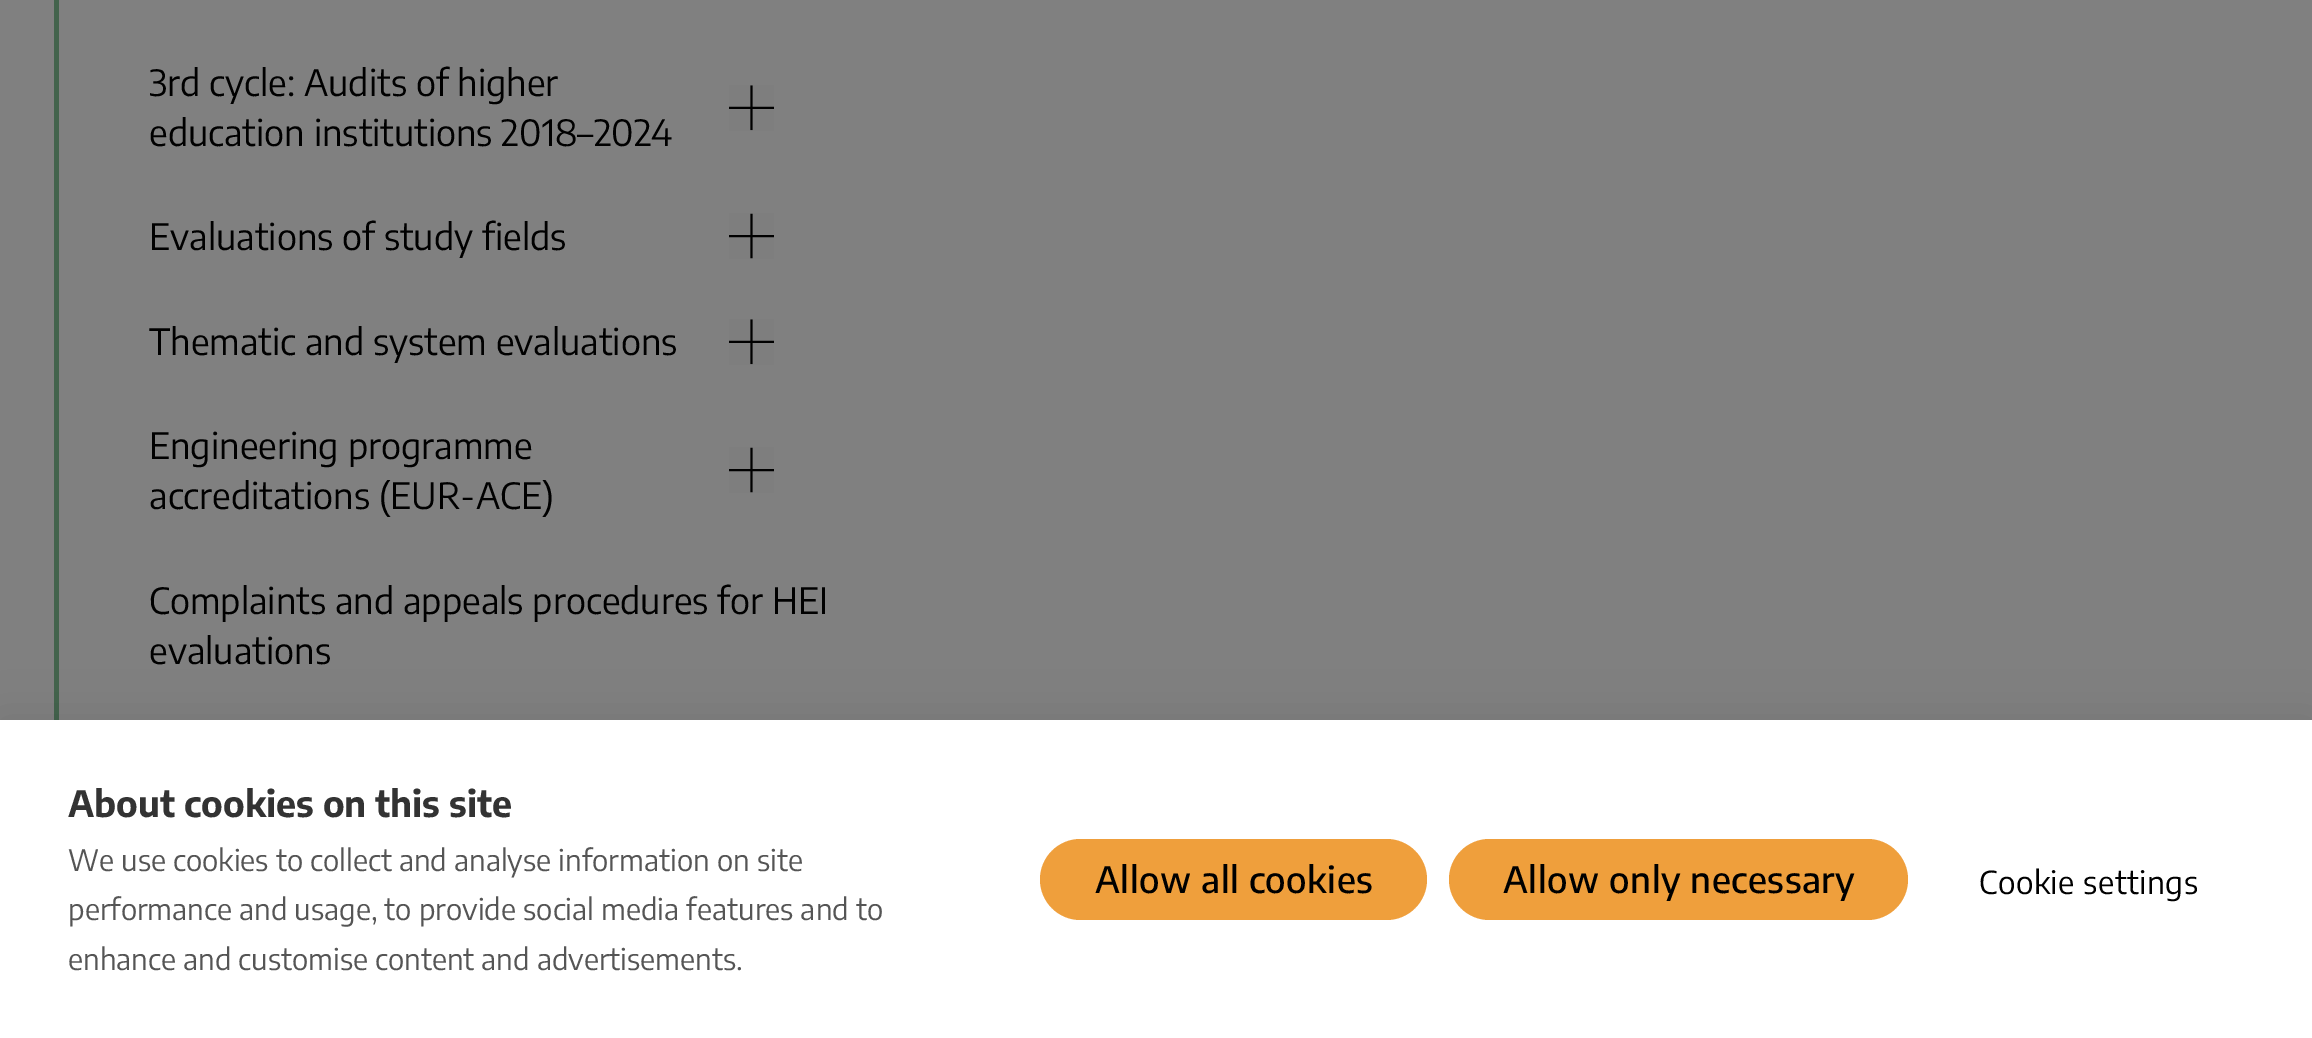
%!PS
<< /PageSize [2312 1038] /PageUsesTransparency true >> setpagedevice
/rgb { 3 { 255 div 3 1 roll } repeat setrgbcolor } def
/font { [ exch dup neg 0 0 3 -1 roll 0 0 ] selectfont } def
/text { moveto show } def
/alpha { dup .setfillconstantalpha .setstrokeconstantalpha } def
/roundrect { 5 dict begin { /r /h /w /y /x } { exch def } forall
  x r add y moveto x w add y 2 copy h add r arct x w add y h add x 1 index r arct
  x y h add x y r arct x y 2 copy exch w add exch r arct closepath end } def
/shadow { 12 dict begin { /a /b /q /h /w /y /x } { exch def } forall gsave /was 0 def
  9 -2 -9 { dup b mul 4 div /e exch def 1 sub .425 mul 2.718 exch exp 1 add a .99 .min exch div /now exch def
    1 1 now sub 1 was sub div sub alpha /was now def
    w h .min e 2 mul add 0 gt { x e sub y e sub w e 2 mul add h e 2 mul add
      q e add b .6 mul add w h .min 2 div e add .min 0 .max roundrect fill } if } for grestore end } def
/picture { 5 dict begin { /h /w /y /x /name } { exch def } forall
  gsave x y translate w h scale
  w h 8 [w 0 0 h 0 0] name (r) file false 3 colorimage grestore end } def
0 .pushpdf14devicefilter
0 1038 translate 1 -1 scale
4 setmiterlimit
128 128 128 rgb
0 0 2312 1038 rectfill
67 99 76 rgb
54 0 5 720 rectfill
(img_01.rgb) 729 85 45 46 picture
(img_02.rgb) 729 213 45 46 picture
(img_01.rgb) 729 319 45 46 picture
(img_02.rgb) 729 447 45 46 picture
0 0 0 rgb
0 720 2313 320 0 22.5 0.1 shadow
255 255 255 rgb
0 720 2312 318 rectfill
239 159 60 rgb
1040 839 387 81 40.5 roundrect fill
1449 839 459 81 40.5 roundrect fill
/EncodeSansCondensed-Regular 36 font
0 0 0 rgb
(3rd cycle: Audits of higher) 149 96 text
(education institutions 2018–2024) 149 146 text
(Evaluations of study fields) 149 250 text
(Thematic and system evaluations) 149 355 text
(Engineering programme) 149 459 text
(accreditations \(EUR-ACE\)) 149 509 text
(Complaints and appeals procedures for HEI) 149 614 text
(evaluations) 149 664 text
/EncodeSansCondensed-Bold 36 font
51 51 51 rgb
(About cookies on this site) 68 817 text
/EncodeSansCondensed-Regular 29.25 font
85 85 85 rgb
(We use cookies to collect and analyse information on site) 68 871 text
(performance and usage, to provide social media features and to) 68 920 text
(enhance and customise content and advertisements.) 68 970 text
/EncodeSansCondensed-Medium 36 font
0 0 0 rgb
1095 893 moveto 0.5 0 (Allow all cookies) ashow
1503 893 moveto 0.5 0 (Allow only necessary) ashow
/EncodeSansCondensed-Regular 31.5 font
1979 894 moveto 0.5 0 (Cookie settings) ashow
.poppdf14devicefilter showpage
